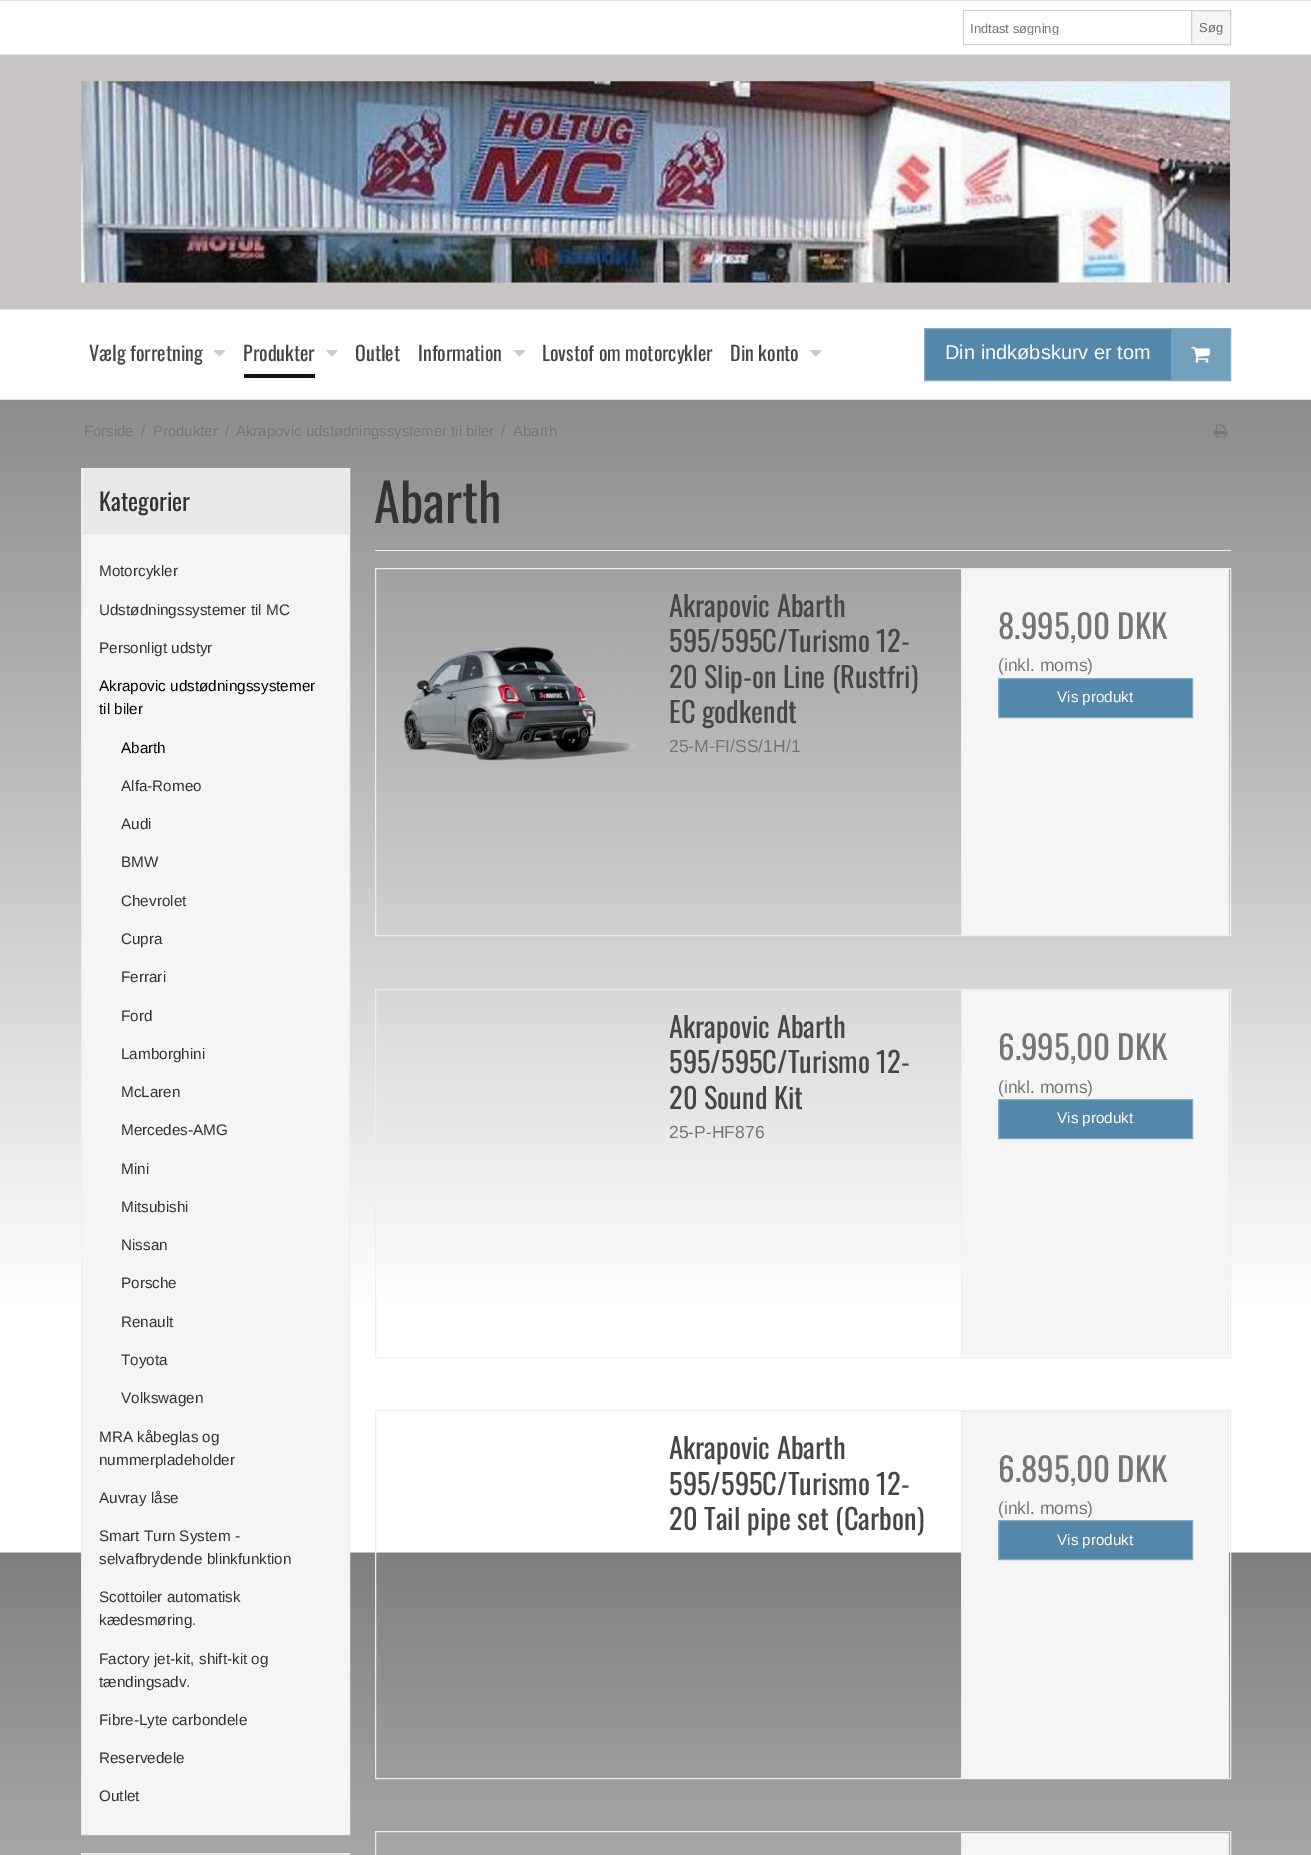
%!PS
<< /PageSize [1311 1855] >> setpagedevice
/rgb { 3 { 255 div 3 1 roll } repeat setrgbcolor } def
/font { [ exch dup neg 0 0 3 -1 roll 0 0 ] selectfont } def
/text { moveto show } def
/picture { 5 dict begin { /h /w /y /x /name } { exch def } forall
  gsave x y translate w h scale
  w h 8 [w 0 0 h 0 0] name (r) file false 3 colorimage grestore end } def
0 1855 translate 1 -1 scale
4 setmiterlimit
255 255 255 rgb
0 0 1311 1855 rectfill
(img_01.rgb) 0 400 1311 1455 picture
230 230 230 rgb
0 0 1311 1 rectfill
0 54 1311 1 rectfill
207 207 207 rgb
963 10 230 1 rectfill
963 44 230 1 rectfill
963 10 1 35 rectfill
245 245 245 rgb
1191.5 10.5 moveto 39 0 rlineto 0 34 rlineto -39 0 rlineto closepath gsave fill grestore
207 207 207 rgb
stroke
201 197 197 rgb
0 55 1311 254 rectfill
(img_02.rgb) 81 81 1149 202 picture
230 230 230 rgb
0 309 1311 1 rectfill
0 399 1311 1 rectfill
(img_03.rgb) 213 350 12 7 picture
21 17 17 rgb
244 374 71 4 rectfill
(img_04.rgb) 326 350 12 7 picture
(img_03.rgb) 513 350 12 7 picture
(img_05.rgb) 810 350 12 7 picture
83 136 170 rgb
925 329 246 51 rectfill
134 172 196 rgb
924.5 328.5 306 52 rectstroke
117 160 187 rgb
1171 329 59 51 rectfill
(img_06.rgb) 1191 346 19 17 picture
(img_07.rgb) 1213 424 15 14 picture
245 245 245 rgb
81.5 468.5 moveto 268 0 rlineto 0 1366 rlineto -268 0 rlineto closepath gsave fill grestore
238 238 238 rgb
stroke
232 232 232 rgb
83 469 266 65 rectfill
238 238 238 rgb
83 534 266 1 rectfill
245 245 245 rgb
81 1854 2 1 rectfill
238 238 238 rgb
81.5 1853.5 268 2 rectstroke
232 232 232 rgb
83 1854 266 1 rectfill
238 238 238 rgb
375 550 856 1 rectfill
375.5 568.5 855 367 rectstroke
(img_08.rgb) 403 646 233 115 picture
245 245 245 rgb
962 570 266 365 rectfill
238 238 238 rgb
961 569 268 1 rectfill
1228 569 1 366 rectfill
961 569 1 366 rectfill
83 136 170 rgb
998.5 678.5 moveto 194 0 rlineto 0 39 rlineto -194 0 rlineto closepath gsave fill grestore
134 172 196 rgb
stroke
238 238 238 rgb
375.5 989.5 855 368 rectstroke
245 245 245 rgb
962 991 266 365 rectfill
238 238 238 rgb
961 990 268 1 rectfill
1228 990 1 366 rectfill
961 990 1 366 rectfill
83 136 170 rgb
998.5 1099.5 moveto 194 0 rlineto 0 39 rlineto -194 0 rlineto closepath gsave fill grestore
134 172 196 rgb
stroke
238 238 238 rgb
375.5 1410.5 855 368 rectstroke
245 245 245 rgb
962 1412 266 366 rectfill
238 238 238 rgb
961 1411 268 1 rectfill
1228 1411 1 367 rectfill
961 1411 1 367 rectfill
83 136 170 rgb
998.5 1520.5 moveto 194 0 rlineto 0 39 rlineto -194 0 rlineto closepath gsave fill grestore
134 172 196 rgb
stroke
238 238 238 rgb
375.5 1831.5 855 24 rectstroke
245 245 245 rgb
962 1834 266 21 rectfill
238 238 238 rgb
961 1833 268 1 rectfill
1228 1833 1 22 rectfill
961 1833 1 22 rectfill
gsave
970 20 215 15 rectclip
/LiberationSans-Regular 13 font
117 117 117 rgb
(Indtast søgning) 970 33 text
grestore
/LiberationSans-Regular 13 font
108 108 108 rgb
(Søg) 1199 32 text
/Oswald-Regular 20 font
70 70 70 rgb
(Vælg forretning) 89 361 text
(Produkter) 243 361 text
(Outlet) 355 361 text
(Information) 418 361 text
(Lovstof om motorcykler) 542 361 text
(Din konto) 730 361 text
/LiberationSans-Regular 20 font
255 255 255 rgb
(Din indkøbskurv er tom) 945 359 text
/LiberationSans-Regular 14.9 font
117 117 117 rgb
(Forside) 84 436 text
(/) 141 436 text
(Produkter) 153 436 text
(/) 225 436 text
(Akrapovic udstødningssystemer til biler) 236 436 text
(/) 501 436 text
(Abarth) 513 436 text
/Oswald-Regular 24 font
51 51 51 rgb
(Kategorier) 99 511 text
/LiberationSans-Regular 15.25 font
(Motorcykler) 99 576 text
(Udstødningssystemer til MC) 99 615 text
(Personligt udstyr) 99 653 text
0 0 0 rgb
(Akrapovic udstødningssystemer) 99 691 text
(til biler) 99 714 text
(Abarth) 121 753 text
51 51 51 rgb
(Alfa-Romeo) 121 791 text
(Audi) 121 829 text
(BMW) 121 867 text
(Chevrolet) 121 906 text
(Cupra) 121 944 text
(Ferrari) 121 982 text
(Ford) 121 1021 text
(Lamborghini) 121 1059 text
(McLaren) 121 1097 text
(Mercedes-AMG) 121 1135 text
(Mini) 121 1174 text
(Mitsubishi) 121 1212 text
(Nissan) 121 1250 text
(Porsche) 121 1288 text
(Renault) 121 1327 text
(Toyota) 121 1365 text
(Volkswagen) 121 1403 text
(MRA kåbeglas og) 99 1442 text
(nummerpladeholder) 99 1465 text
(Auvray låse) 99 1503 text
(Smart Turn System -) 99 1541 text
(selvafbrydende blinkfunktion) 99 1564 text
(Scottoiler automatisk) 99 1602 text
(kædesmøring.) 99 1625 text
(Factory jet-kit, shift-kit og) 99 1664 text
(tændingsadv.) 99 1687 text
(Fibre-Lyte carbondele) 99 1725 text
(Reservedele) 99 1763 text
(Outlet) 99 1801 text
/Oswald-Regular 52.5 font
(Abarth) 374 523 text
/Oswald-Regular 28.5 font
70 70 70 rgb
(Akrapovic Abarth) 669 617 text
(595/595C/Turismo 12-) 669 652 text
(20 Slip-on Line \(Rustfri\)) 669 688 text
(EC godkendt) 669 723 text
/LiberationSans-Regular 17.5 font
117 117 117 rgb
(25-M-FI/SS/1H/1) 669 752 text
/Oswald-Regular 33 font
(8.995,00 DKK) 998 639 text
/LiberationSans-Regular 17.5 font
(\(inkl. moms\)) 998 671 text
/LiberationSans-Regular 15.25 font
255 255 255 rgb
(Vis produkt) 1057 702 text
/Oswald-Regular 28.5 font
70 70 70 rgb
(Akrapovic Abarth) 669 1038 text
(595/595C/Turismo 12-) 669 1073 text
(20 Sound Kit) 669 1109 text
/LiberationSans-Regular 17.5 font
117 117 117 rgb
(25-P-HF876) 669 1138 text
/Oswald-Regular 33 font
(6.995,00 DKK) 998 1060 text
/LiberationSans-Regular 17.5 font
(\(inkl. moms\)) 998 1093 text
/LiberationSans-Regular 15.25 font
255 255 255 rgb
(Vis produkt) 1057 1123 text
/Oswald-Regular 28.5 font
70 70 70 rgb
(Akrapovic Abarth) 669 1459 text
(595/595C/Turismo 12-) 669 1495 text
(20 Tail pipe set \(Carbon\)) 669 1530 text
/Oswald-Regular 33 font
117 117 117 rgb
(6.895,00 DKK) 998 1482 text
/LiberationSans-Regular 17.5 font
(\(inkl. moms\)) 998 1514 text
/LiberationSans-Regular 15.25 font
255 255 255 rgb
(Vis produkt) 1057 1545 text
showpage
